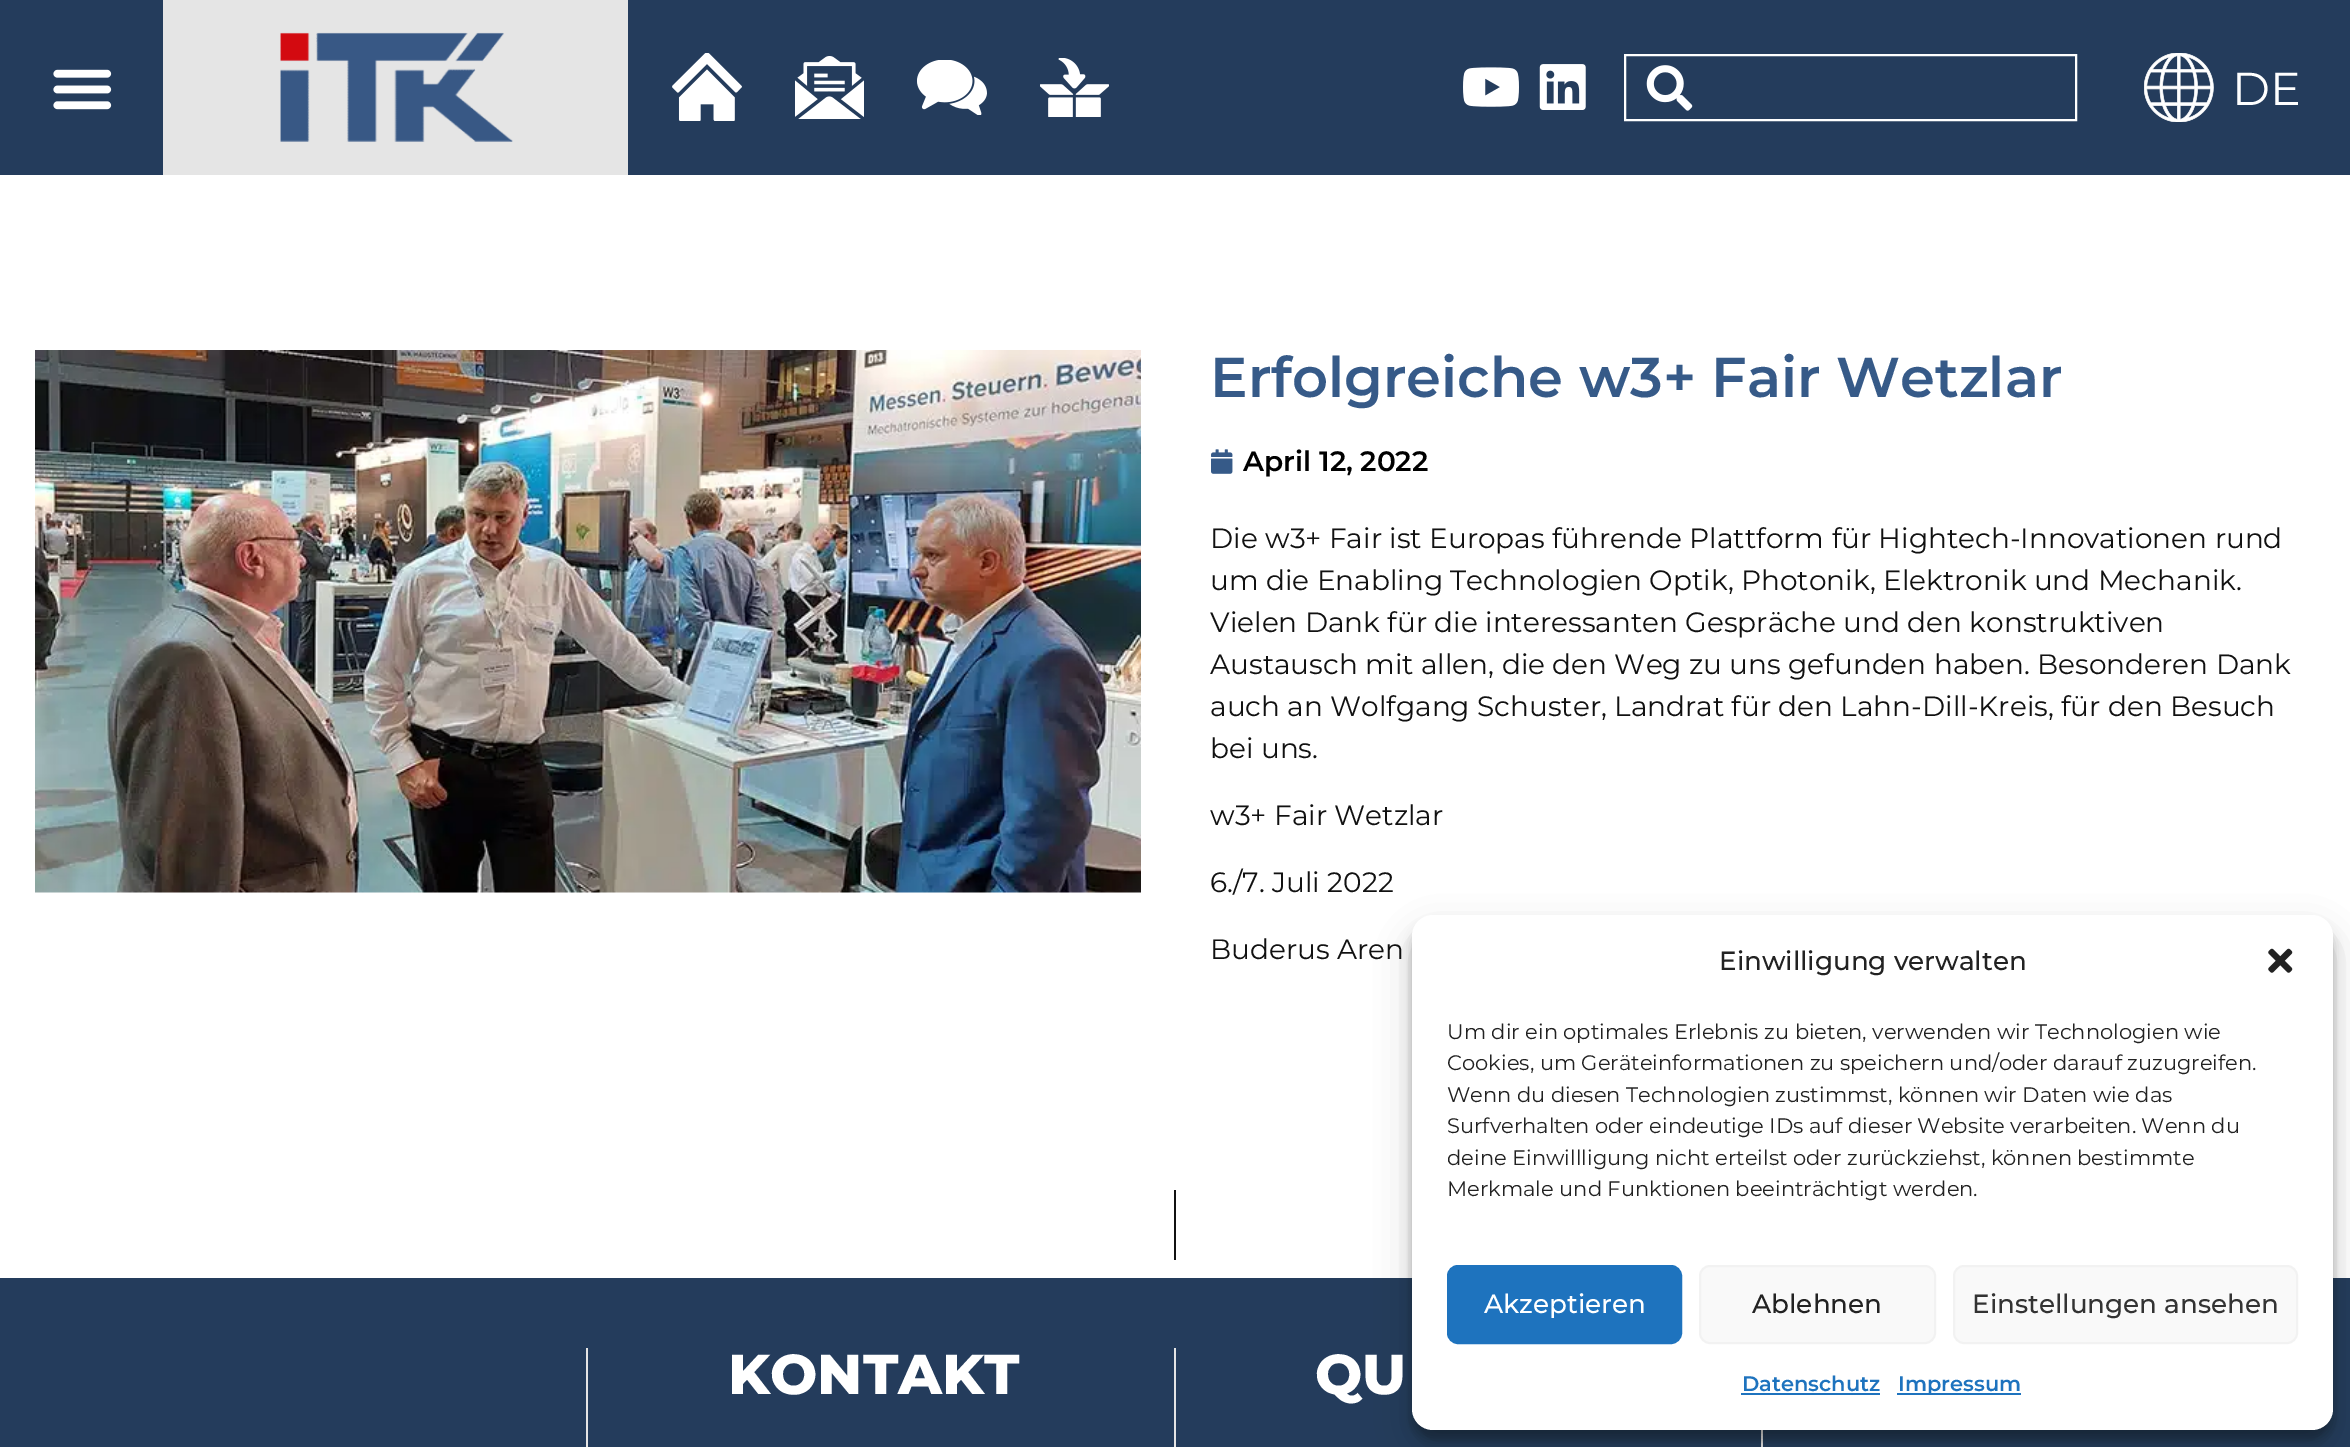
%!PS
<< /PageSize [2350 1447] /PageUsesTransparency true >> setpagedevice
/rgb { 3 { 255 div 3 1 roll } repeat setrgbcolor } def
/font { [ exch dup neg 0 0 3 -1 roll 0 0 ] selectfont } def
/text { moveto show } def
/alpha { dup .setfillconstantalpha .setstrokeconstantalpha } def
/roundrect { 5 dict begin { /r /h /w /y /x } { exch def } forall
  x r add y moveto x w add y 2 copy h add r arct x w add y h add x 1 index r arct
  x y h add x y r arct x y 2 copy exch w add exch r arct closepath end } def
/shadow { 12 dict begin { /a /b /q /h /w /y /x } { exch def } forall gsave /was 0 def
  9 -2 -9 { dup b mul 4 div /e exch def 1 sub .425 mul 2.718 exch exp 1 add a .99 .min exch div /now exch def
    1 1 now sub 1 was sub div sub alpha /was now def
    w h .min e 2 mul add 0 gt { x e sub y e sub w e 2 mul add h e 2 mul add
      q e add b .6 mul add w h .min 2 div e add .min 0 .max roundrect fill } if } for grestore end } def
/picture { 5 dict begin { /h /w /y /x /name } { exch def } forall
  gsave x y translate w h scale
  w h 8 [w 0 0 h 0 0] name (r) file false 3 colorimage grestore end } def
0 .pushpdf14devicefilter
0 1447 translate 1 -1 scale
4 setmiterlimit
255 255 255 rgb
0 0 2350 1447 rectfill
36 60 92 rgb
628 0 1722 175 rectfill
0 0 163 175 rectfill
(img_01.rgb) 53 69 59 41 picture
229 229 229 rgb
163 0 465 175 rectfill
(img_02.rgb) 280 32 233 110 picture
(img_03.rgb) 672 53 70 68 picture
(img_04.rgb) 795 56 69 63 picture
(img_05.rgb) 917 60 70 55 picture
(img_06.rgb) 1040 58 69 59 picture
(img_07.rgb) 1463 67 56 40 picture
(img_08.rgb) 1539 64 47 46 picture
255 255 255 rgb
2 setlinewidth
1625 55 451 65 rectstroke
(img_09.rgb) 1646 65 47 46 picture
(img_10.rgb) 2144 53 70 69 picture
(img_11.rgb) 35 350 1106 543 picture
(img_12.rgb) 1211 449 22 25 picture
17 17 17 rgb
1174 1190 2 70 rectfill
36 60 92 rgb
0 1278 2350 169 rectfill
229 229 229 rgb
586 1348 2 99 rectfill
1174 1348 2 99 rectfill
1761 1430 2 17 rectfill
0 0 0 rgb
1412 926 921 514 21 5 0.23 shadow
1412 933 921 514 21 17.5 0.19 shadow
255 255 255 rgb
1412 915 921 515 21 roundrect fill
(img_13.rgb) 2268 948 25 25 picture
30 115 190 rgb
1448 1266 233 77 10 roundrect gsave fill grestore
stroke
249 249 249 rgb
1700 1266 235 77 10 roundrect gsave fill grestore
242 242 242 rgb
stroke
249 249 249 rgb
1954 1266 343 77 10 roundrect gsave fill grestore
242 242 242 rgb
stroke
30 115 190 rgb
1741 1393 139 2 rectfill
1897 1393 124 2 rectfill
/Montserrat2-Thin 46 font
255 255 255 rgb
(DE) 2232 105 text
/Montserrat-Thin 56 font
54 90 136 rgb
(Erfolgreiche w3+ Fair Wetzlar) 1210 397 text
/Montserrat-Thin 28 font
0 0 0 rgb
(April 12, 2022) 1243 471 text
/Montserrat2-Thin 28 font
17 17 17 rgb
(Die w3+ Fair ist Europas führende Plattform für Hightech-Innovationen rund) 1210 548 text
(um die Enabling Technologien Optik, Photonik, Elektronik und Mechanik.) 1210 590 text
(Vielen Dank für die interessanten Gespräche und den konstruktiven) 1210 632 text
(Austausch mit allen, die den Weg zu uns gefunden haben. Besonderen Dank) 1210 674 text
(auch an Wolfgang Schuster, Landrat für den Lahn-Dill-Kreis, für den Besuch) 1210 716 text
(bei uns.) 1210 758 text
(w3+ Fair Wetzlar) 1210 825 text
(6./7. Juli 2022) 1210 892 text
(Buderus Aren) 1210 959 text
/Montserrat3-Thin 56 font
255 255 255 rgb
(KONTAKT) 728 1394 text
(QU) 1315 1394 text
/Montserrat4-Thin 26.25 font
34 34 34 rgb
(Einwilligung verwalten) 1719 970 text
/Montserrat2-Thin 21 font
(Um dir ein optimales Erlebnis zu bieten, verwenden wir Technologien wie) 1447 1039 text
(Cookies, um Geräteinformationen zu speichern und/oder darauf zuzugreifen.) 1447 1070 text
(Wenn du diesen Technologien zustimmst, können wir Daten wie das) 1447 1102 text
(Surfverhalten oder eindeutige IDs auf dieser Website verarbeiten. Wenn du) 1447 1133 text
(deine Einwillligung nicht erteilst oder zurückziehst, können bestimmte) 1447 1165 text
(Merkmale und Funktionen beeinträchtigt werden.) 1447 1196 text
/Montserrat4-Thin 26.25 font
255 255 255 rgb
(Akzeptieren) 1484 1313 text
34 34 34 rgb
(Ablehnen) 1752 1313 text
51 51 51 rgb
(Einstellungen ansehen) 1972 1313 text
/Montserrat-Thin 21 font
30 115 190 rgb
(Datenschutz) 1742 1391 text
(Impressum) 1898 1391 text
.poppdf14devicefilter showpage
